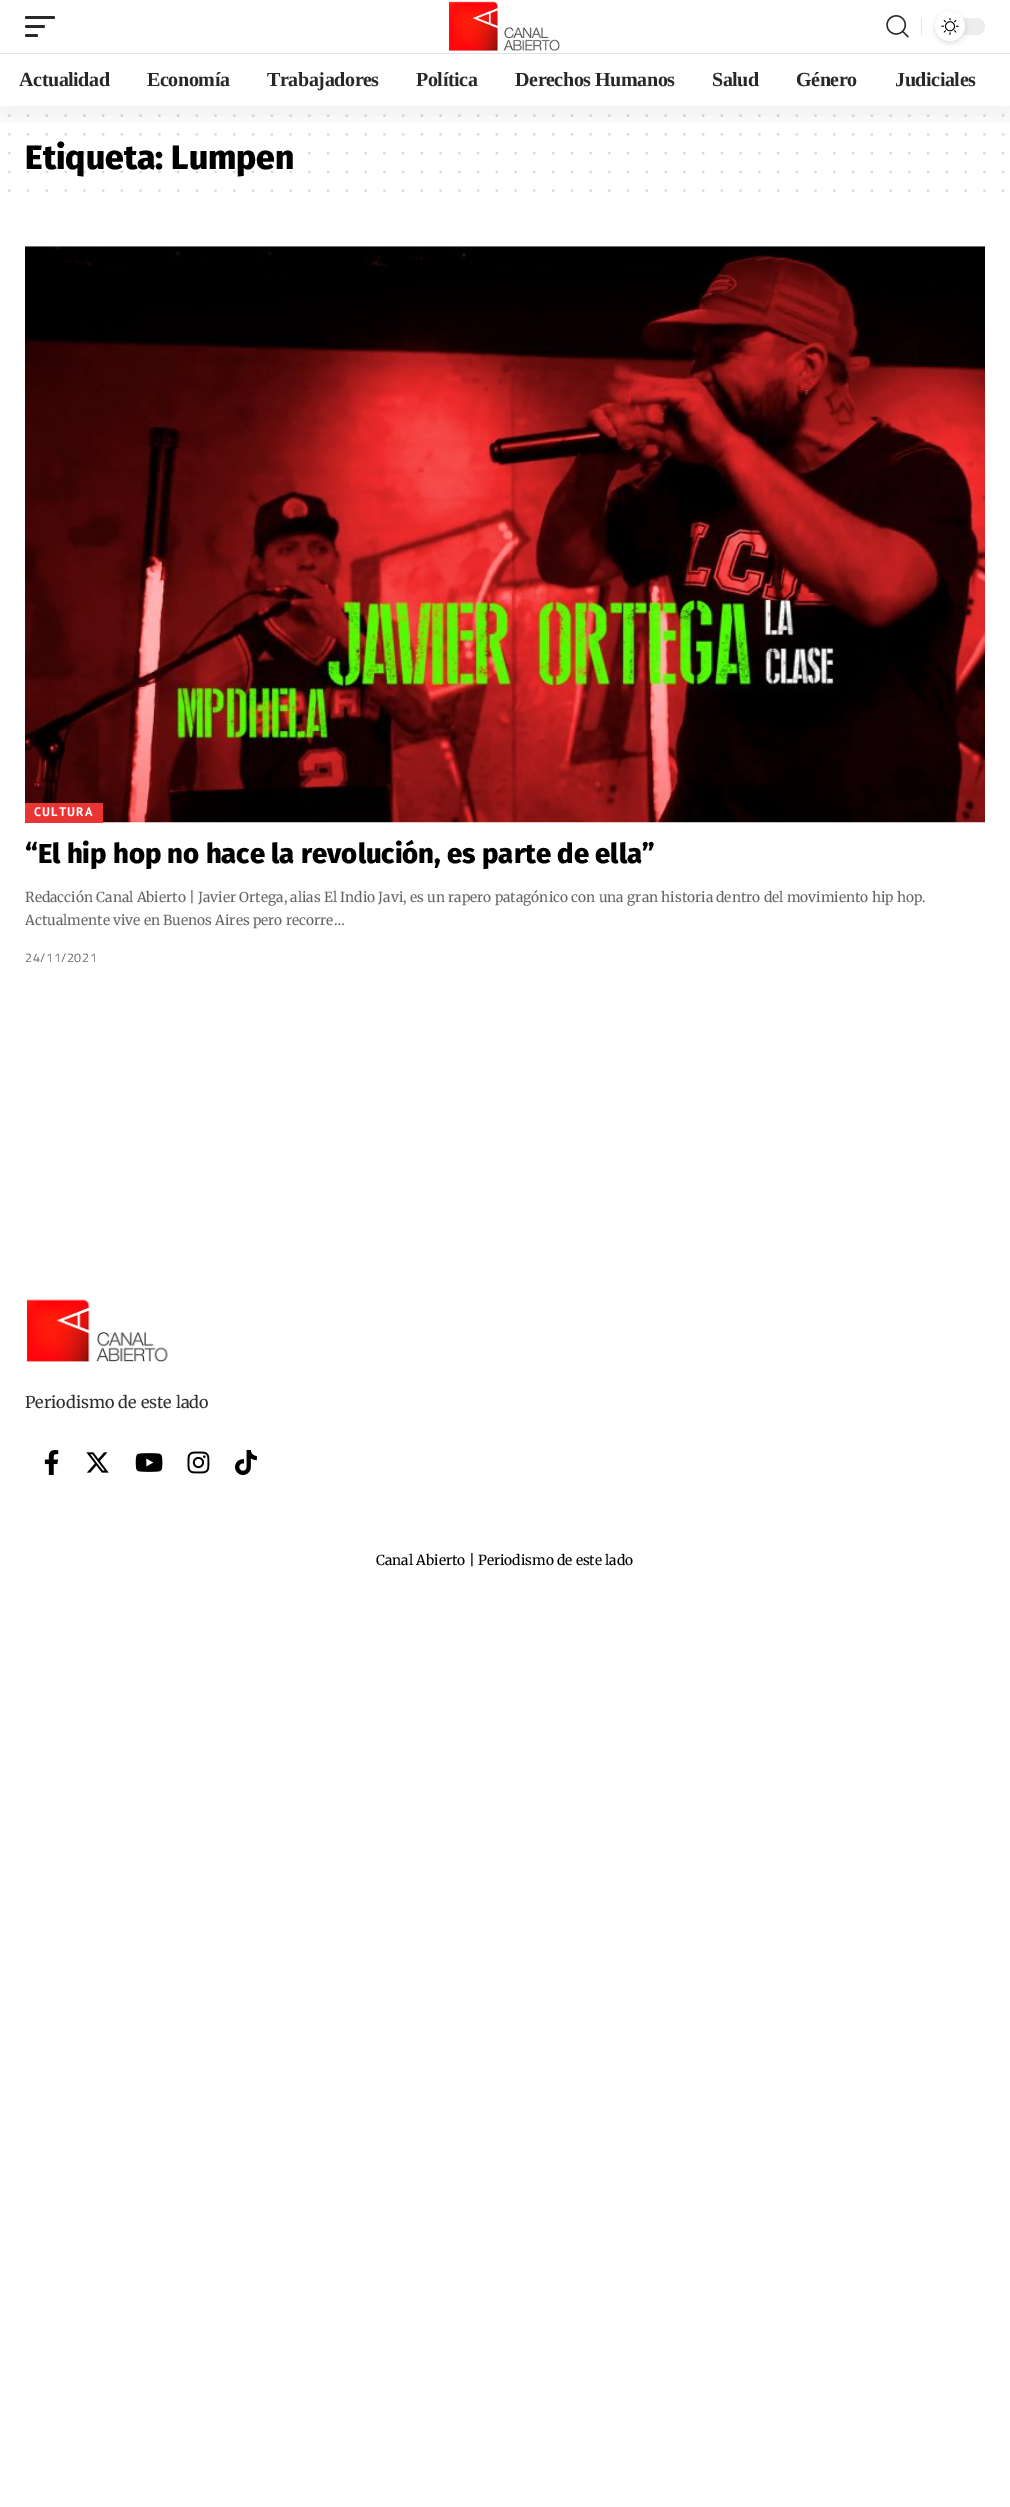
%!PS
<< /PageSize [1010 2507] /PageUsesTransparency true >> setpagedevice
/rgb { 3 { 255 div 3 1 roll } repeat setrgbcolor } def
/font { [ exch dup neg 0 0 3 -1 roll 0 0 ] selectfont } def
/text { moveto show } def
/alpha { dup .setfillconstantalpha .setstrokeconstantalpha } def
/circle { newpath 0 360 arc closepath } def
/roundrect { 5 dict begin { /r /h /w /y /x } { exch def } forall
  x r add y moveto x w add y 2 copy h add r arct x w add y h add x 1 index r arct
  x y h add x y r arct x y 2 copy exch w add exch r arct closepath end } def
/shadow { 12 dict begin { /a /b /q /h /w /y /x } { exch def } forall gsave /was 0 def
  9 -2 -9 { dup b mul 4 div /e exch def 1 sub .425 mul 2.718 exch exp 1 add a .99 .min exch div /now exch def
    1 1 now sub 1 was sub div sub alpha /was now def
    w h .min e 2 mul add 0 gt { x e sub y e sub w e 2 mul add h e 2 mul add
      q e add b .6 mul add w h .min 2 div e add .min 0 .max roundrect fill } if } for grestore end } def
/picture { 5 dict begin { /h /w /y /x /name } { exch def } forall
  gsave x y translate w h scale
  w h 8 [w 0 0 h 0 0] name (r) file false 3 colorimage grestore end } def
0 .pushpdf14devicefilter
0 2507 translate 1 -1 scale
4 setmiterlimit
255 255 255 rgb
0 0 1010 2507 rectfill
217 217 217 rgb
2.5 setlinewidth
1 setlinecap
[0 18.75] 0 setdash
9.4 115.6 moveto 994 0 rlineto stroke
9.4 134.4 moveto 994 0 rlineto stroke
9.4 190.6 moveto 994 0 rlineto stroke
(img_04.rgb) 25 246 960 577 picture
234 53 53 rgb
25 803 78 20 rectfill
(img_05.rgb) 26 1299 142 63 picture
(img_06.rgb) 44 1450 15 25 picture
(img_07.rgb) 86 1452 23 21 picture
(img_08.rgb) 135 1453 28 19 picture
(img_09.rgb) 187 1451 23 23 picture
(img_10.rgb) 235 1450 22 25 picture
/FiraSans-ExtraBold 33.75 font
0 0 0 rgb
(Etiqueta: Lumpen) 25 169 text
0.15 alpha
9.4 153.1 moveto 994 0 rlineto stroke
gsave
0 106 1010 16 rectclip
1 alpha
0 5 1010 106 0 19 0.07 shadow
grestore
/LiberationSerif-Bold 20 font
1 alpha
40 40 40 rgb
895 86 moveto -0.4 0 (Judiciales) ashow
796 86 moveto -0.4 0 (Género) ashow
712 86 moveto -0.4 0 (Salud) ashow
515 86 moveto -0.4 0 (Derechos Humanos) ashow
416 86 moveto -0.4 0 (Política) ashow
267 86 moveto -0.4 0 (Trabajadores) ashow
147 86 moveto -0.4 0 (Economía) ashow
19 86 moveto -0.4 0 (Actualidad) ashow
228 228 228 rgb
0 53 1010 1 rectfill
237 237 237 rgb
935 18 50 17 8.5 roundrect fill
0 0 0 rgb
935 13 30 30 15 2.5 0.12 shadow
255 255 255 rgb
950 26 15 circle fill
(img_03.rgb) 941 18 18 17 picture
228 228 228 rgb
921 18 1 17 rectfill
(img_02.rgb) 886 15 23 23 picture
40 40 40 rgb
25 34 13 3 1.5 roundrect fill
25 25 20 3 1.5 roundrect fill
25 16 30 3 1.5 roundrect fill
(img_01.rgb) 448 1 112 50 picture
0.15 alpha
0 0 0 rgb
9.4 171.9 moveto 994 0 rlineto stroke
/PTSans-Bold 12.5 font
1 alpha
255 255 255 rgb
34 816 moveto 1.25 0 (CULTURA) ashow
/FiraSans-ExtraBold 27.5 font
0 0 0 rgb
(“El hip hop no hace la revolución, es parte de ella”) 25 863 text
/Merriweather-Regular 13.75 font
102 102 102 rgb
(Redacción Canal Abierto | Javier Ortega, alias El Indio Javi, es un rapero patagónico con una gran historia dentro del movimiento hip hop.) 25 902 text
(Actualmente vive en Buenos Aires pero recorre…) 25 925 text
/TitilliumWeb-Regular 12.5 font
25 962 moveto 0.6 0 (24/11/2021) ashow
/Merriweather-Regular 16.25 font
48 48 48 rgb
(Periodismo de este lado) 25 1408 text
/Merriweather-Regular 13.75 font
0 0 0 rgb
(Canal Abierto | Periodismo de este lado) 376 1565 text
.poppdf14devicefilter showpage
